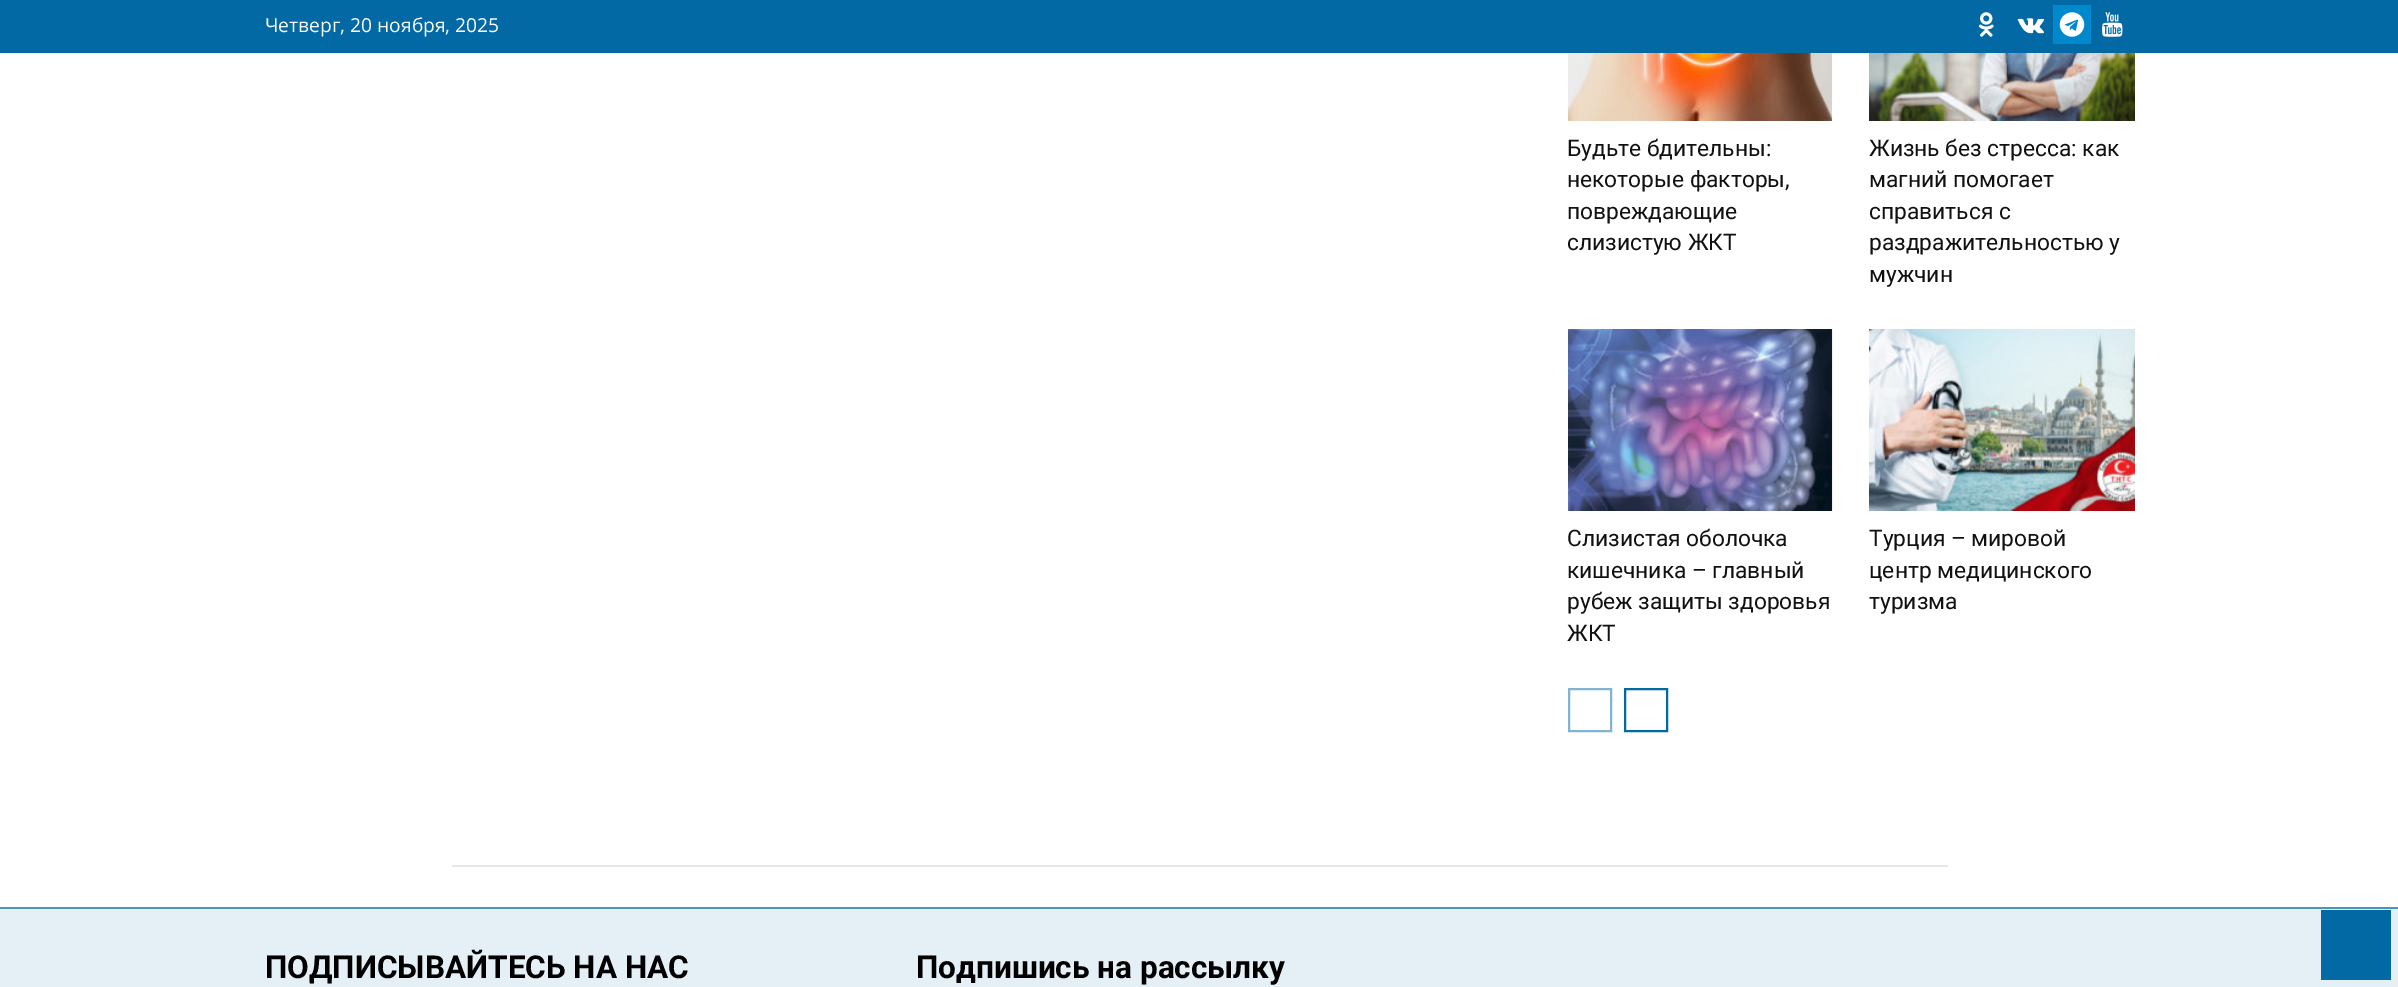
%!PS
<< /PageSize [2398 987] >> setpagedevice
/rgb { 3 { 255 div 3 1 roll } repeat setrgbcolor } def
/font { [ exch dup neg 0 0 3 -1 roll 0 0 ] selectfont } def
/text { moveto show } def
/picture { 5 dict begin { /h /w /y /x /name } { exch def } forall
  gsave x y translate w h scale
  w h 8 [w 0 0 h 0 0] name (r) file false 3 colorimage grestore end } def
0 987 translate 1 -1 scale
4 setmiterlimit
255 255 255 rgb
0 0 2398 987 rectfill
2 105 164 rgb
0 0 2398 53 rectfill
(img_01.rgb) 1978 12 16 25 picture
(img_02.rgb) 2017 18 27 16 picture
0 136 204 rgb
2053 5 38 39 rectfill
(img_03.rgb) 2059 12 26 25 picture
(img_04.rgb) 2102 12 21 25 picture
(img_05.rgb) 1568 53 265 68 picture
(img_06.rgb) 1869 53 266 68 picture
(img_07.rgb) 1568 329 265 182 picture
(img_08.rgb) 1869 329 266 182 picture
129 180 210 rgb
2 setlinewidth
1569 689 42 42 rectstroke
3 105 164 rgb
1625 689 42 42 rectstroke
229 240 246 rgb
0 909 2398 78 rectfill
75 150 190 rgb
0 907 2398 2 rectfill
230 230 230 rgb
452 865 1496 2 rectfill
2 105 164 rgb
2321 910 70 70 rectfill
/OpenSans-Regular 19.25 font
255 255 255 rgb
(Четверг, 20 ноября, 2025) 265 32 text
/Roboto-Regular 22.75 font
17 17 17 rgb
(Будьте бдительны:) 1567 156 text
(некоторые факторы,) 1567 187 text
(повреждающие) 1567 219 text
(слизистую ЖКТ) 1567 250 text
(Жизнь без стресса: как) 1869 156 text
(магний помогает) 1869 187 text
(справиться с) 1869 219 text
(раздражительностью у) 1869 250 text
(мужчин) 1869 282 text
(Слизистая оболочка) 1567 546 text
(кишечника – главный) 1567 578 text
(рубеж защиты здоровья) 1567 609 text
(ЖКТ) 1567 641 text
(Турция – мировой) 1869 546 text
(центр медицинского) 1869 578 text
(туризма) 1869 609 text
/Roboto-Bold 31.5 font
0 0 0 rgb
(ПОДПИСЫВАЙТЕСЬ НА НАС) 265 978 text
(Подпишись на рассылку) 916 978 text
showpage
